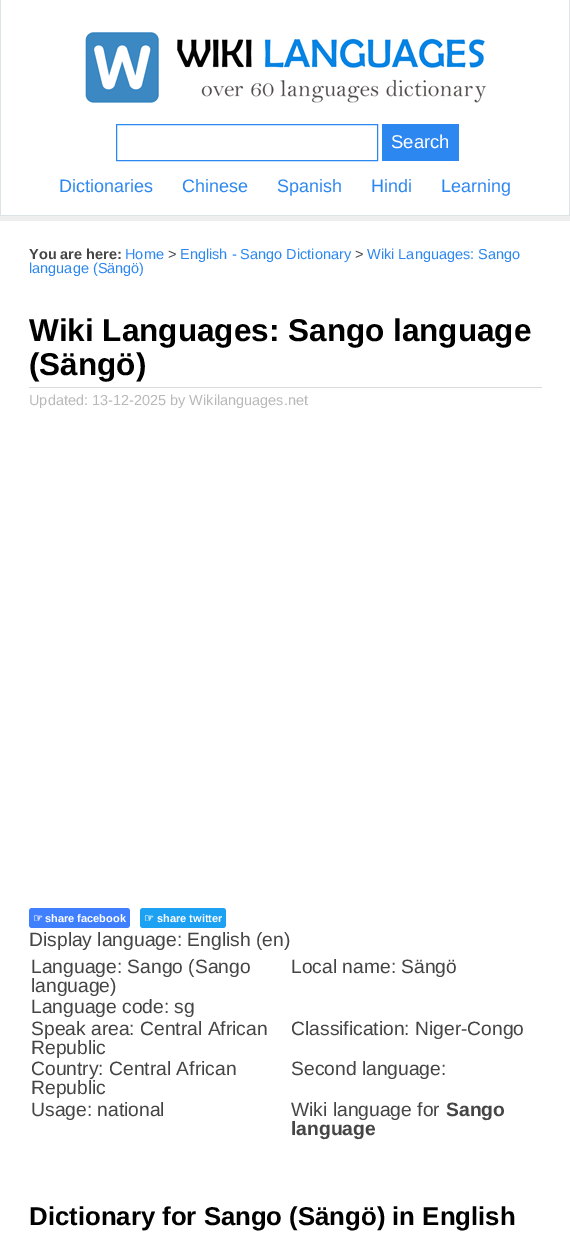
%!PS
<< /PageSize [570 1256] >> setpagedevice
/rgb { 3 { 255 div 3 1 roll } repeat setrgbcolor } def
/font { [ exch dup neg 0 0 3 -1 roll 0 0 ] selectfont } def
/text { moveto show } def
/roundrect { 5 dict begin { /r /h /w /y /x } { exch def } forall
  x r add y moveto x w add y 2 copy h add r arct x w add y h add x 1 index r arct
  x y h add x y r arct x y 2 copy exch w add exch r arct closepath end } def
/picture { 5 dict begin { /h /w /y /x /name } { exch def } forall
  gsave x y translate w h scale
  w h 8 [w 0 0 h 0 0] name (r) file false 3 colorimage grestore end } def
0 1256 translate 1 -1 scale
4 setmiterlimit
238 238 238 rgb
0 0 570 1256 rectfill
255 255 255 rgb
1 0 568 215 rectfill
221 226 229 rgb
569 0 1 216 rectfill
0 215 570 1 rectfill
0 0 1 216 rectfill
(img_01.rgb) 85 32 402 71 picture
44 135 240 rgb
116.5 124.5 261 36 rectstroke
382 124 77 37 rectfill
255 255 255 rgb
0 221 570 1035 rectfill
218 218 218 rgb
29 387 513 1 rectfill
64 128 255 rgb
29 908 101 20 3 roundrect fill
29 161 242 rgb
140 908 86 20 3 roundrect fill
/LiberationSans-Regular 18.5 font
255 255 255 rgb
(Search) 391 148 text
/LiberationSans-Regular 18 font
44 135 240 rgb
(Dictionaries) 59 192 text
(Chinese) 182 192 text
(Spanish) 277 192 text
(Hindi) 371 192 text
(Learning) 441 192 text
/LiberationSans-Bold 14.5 font
69 69 69 rgb
(You are here:) 29 259 text
/LiberationSans-Regular 14.5 font
44 135 240 rgb
(Home) 125 259 text
69 69 69 rgb
(>) 168 259 text
44 135 240 rgb
(English - Sango Dictionary) 180 259 text
69 69 69 rgb
(>) 355 259 text
44 135 240 rgb
(Wiki Languages: Sango) 367 259 text
(language \(Sängö\)) 29 273 text
/LiberationSans-Bold 31.5 font
0 0 0 rgb
(Wiki Languages: Sango language) 29 341 text
(\(Sängö\)) 29 375 text
/LiberationSans-Regular 14.5 font
185 185 185 rgb
(Updated: 13-12-2025 by Wikilanguages.net) 29 405 text
/DejaVuSans-Bold 11 font
255 255 255 rgb
(☞) 33 922 text
/LiberationSans-Bold 11 font
(share facebook) 45 922 text
/DejaVuSans-Bold 11 font
(☞) 144 922 text
/LiberationSans-Bold 11 font
(share twitter) 157 922 text
/LiberationSans-Regular 19.25 font
69 69 69 rgb
(Display language: English \(en\)) 29 946 text
(Language: Sango \(Sango) 31 973 text
(language\)) 31 992 text
(Local name: Sängö) 291 973 text
(Language code: sg) 31 1013 text
(Speak area: Central African) 31 1035 text
(Republic) 31 1054 text
(Classification: Niger-Congo) 291 1035 text
(Country: Central African) 31 1075 text
(Republic) 31 1094 text
(Second language:) 291 1075 text
(Usage: national) 31 1116 text
(Wiki language for) 291 1116 text
/LiberationSans-Bold 19.25 font
(Sango) 446 1116 text
(language) 291 1135 text
/LiberationSans-Bold 25.75 font
0 0 0 rgb
(Dictionary for Sango \(Sängö\) in English) 29 1225 text
showpage
